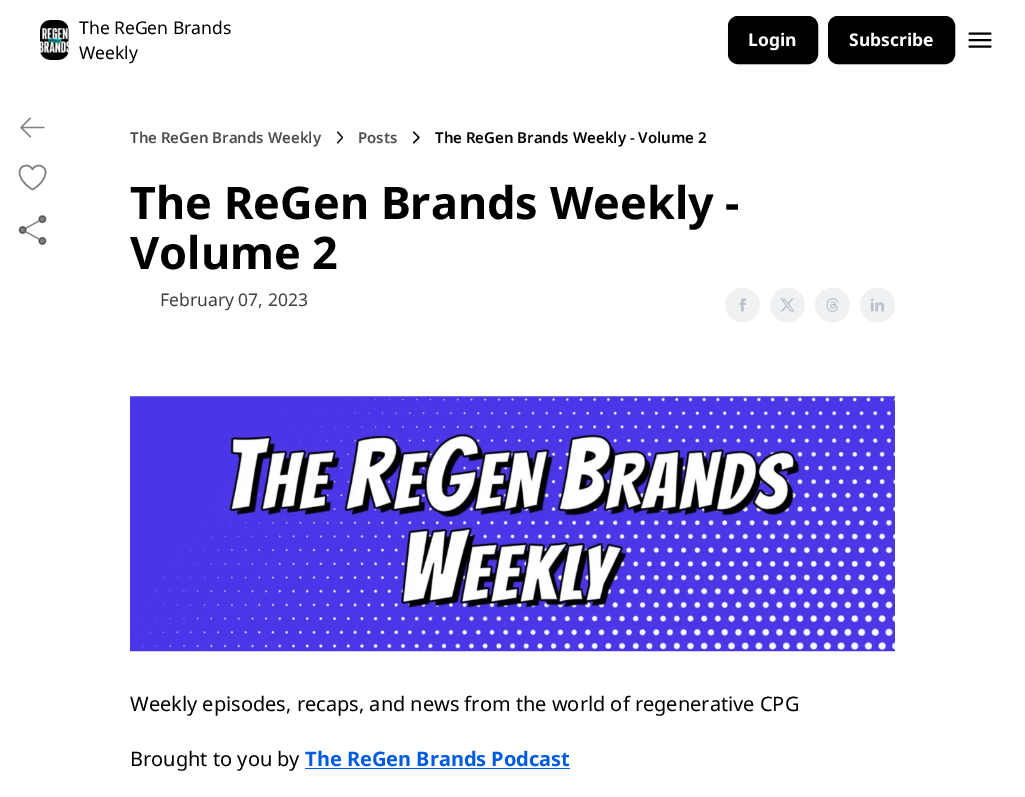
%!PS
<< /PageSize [1025 797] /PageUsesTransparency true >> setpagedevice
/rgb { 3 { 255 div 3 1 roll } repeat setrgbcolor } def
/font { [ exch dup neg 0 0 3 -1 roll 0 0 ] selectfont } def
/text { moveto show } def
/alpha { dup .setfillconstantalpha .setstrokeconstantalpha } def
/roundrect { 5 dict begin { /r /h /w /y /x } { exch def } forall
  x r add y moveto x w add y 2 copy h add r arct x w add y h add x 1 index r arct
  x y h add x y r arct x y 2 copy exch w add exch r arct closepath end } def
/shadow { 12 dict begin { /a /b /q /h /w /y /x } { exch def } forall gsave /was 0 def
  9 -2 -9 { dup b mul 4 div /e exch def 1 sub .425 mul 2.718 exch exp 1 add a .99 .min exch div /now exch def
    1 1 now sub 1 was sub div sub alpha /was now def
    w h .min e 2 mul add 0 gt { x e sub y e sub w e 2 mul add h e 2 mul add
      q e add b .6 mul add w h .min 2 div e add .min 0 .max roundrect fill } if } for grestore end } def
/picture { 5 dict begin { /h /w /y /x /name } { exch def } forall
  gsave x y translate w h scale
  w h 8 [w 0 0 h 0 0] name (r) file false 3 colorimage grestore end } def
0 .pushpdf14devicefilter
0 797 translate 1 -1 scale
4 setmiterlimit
255 255 255 rgb
0 0 1025 797 rectfill
(img_01.rgb) 40 20 29 40 picture
0 0 0 rgb
728 18 90 47 10 1 0.05 shadow
728.5 16.5 89 47 9.5 roundrect gsave fill grestore
stroke
828 18 127 47 10 1 0.05 shadow
828.5 16.5 126 47 9.5 roundrect gsave fill grestore
stroke
1.9 setlinewidth
1 setlinecap
1 setlinejoin
969.5 33.5 moveto 21 0 rlineto 969.5 40 moveto 21 0 rlineto 969.5 46.5 moveto 21 0 rlineto stroke
128 128 128 rgb
1.2 setlinewidth
30.5 137 moveto -9.5 -9.5 rlineto 21 127.5 moveto 9.5 -9.5 rlineto 21 127.5 moveto 23 0 rlineto stroke
1.5 setlinewidth
45.5 172 moveto 0 -7 -10 -9 -13 -2.5 rcurveto -3.5 -8 -18.5 -3.5 -11 9.5 rcurveto 2.5 4.5 6.5 8 11 10.5 rcurveto 0 0 13 -7 13 -17.5 rcurveto closepath stroke
(img_02.rgb) 18 215 29 30 picture
0 0 0 rgb
1.1 setlinewidth
337.5 132 moveto 5 5.5 rlineto -5 5.5 rlineto stroke
413.5 132 moveto 5.5 5.5 rlineto -5.5 5.5 rlineto stroke
(img_03.rgb) 725 288 35 35 picture
(img_04.rgb) 770 288 35 35 picture
(img_05.rgb) 815 288 35 35 picture
(img_06.rgb) 860 288 35 35 picture
(img_07.rgb) 130 396 765 256 picture
0 91 224 rgb
305 768 265 1 rectfill
/NotoSans-Regular 17.5 font
0 0 0 rgb
(The ReGen Brands) 79 34 text
(Weekly) 79 59 text
/NotoSans-Bold 17.5 font
255 255 255 rgb
(Login) 748 46 text
(Subscribe) 849 46 text
/NotoSans-SemiBold 15 font
77 77 77 rgb
(The ReGen Brands Weekly) 130 143 text
(Posts) 358 143 text
0 0 0 rgb
(The ReGen Brands Weekly - Volume 2) 435 143 text
/NotoSans-Bold 45 font
(The ReGen Brands Weekly -) 130 219 text
(Volume 2) 130 269 text
/NotoSans-Regular 17.5 font
64 64 64 rgb
(February 07, 2023) 160 306 text
/NotoSans-Regular 20 font
0 0 0 rgb
(Weekly episodes, recaps, and news from the world of regenerative CPG) 130 711 text
(Brought to you by) 130 766 text
/NotoSans-Bold 20 font
0 91 224 rgb
(The ReGen Brands Podcast) 305 766 text
.poppdf14devicefilter showpage
